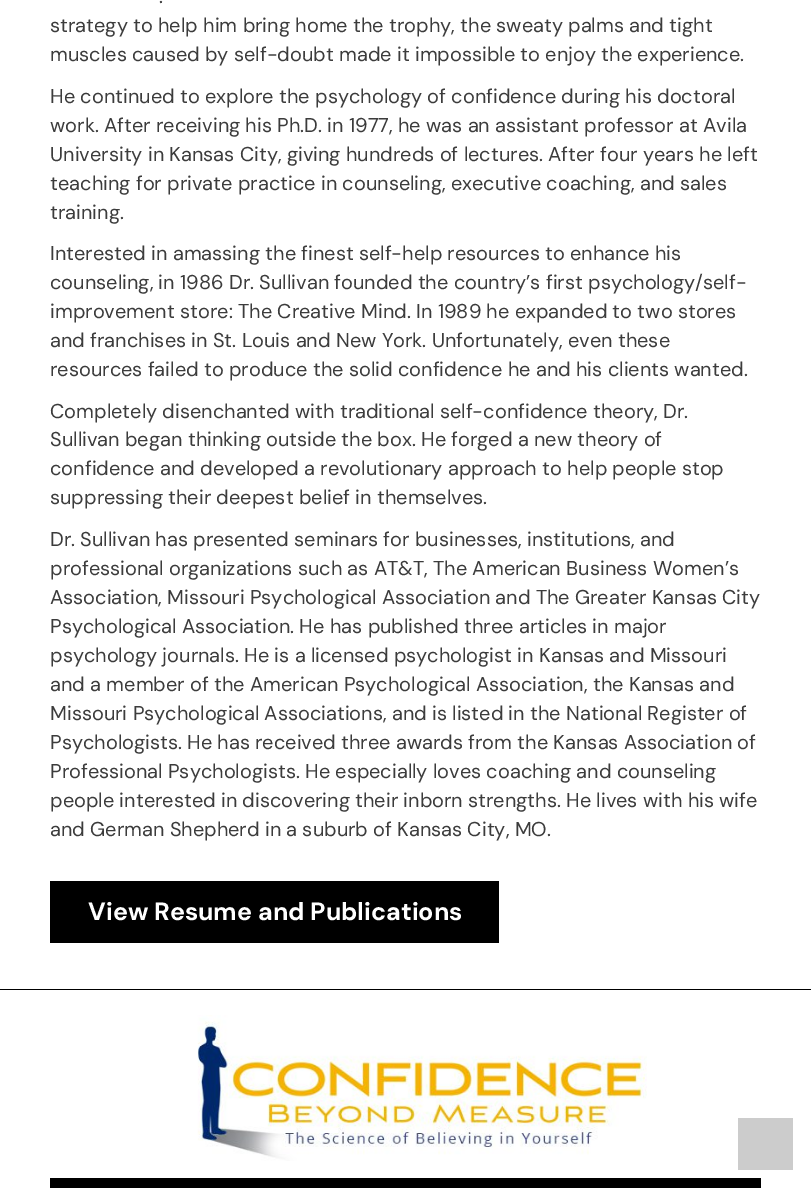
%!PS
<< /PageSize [811 1188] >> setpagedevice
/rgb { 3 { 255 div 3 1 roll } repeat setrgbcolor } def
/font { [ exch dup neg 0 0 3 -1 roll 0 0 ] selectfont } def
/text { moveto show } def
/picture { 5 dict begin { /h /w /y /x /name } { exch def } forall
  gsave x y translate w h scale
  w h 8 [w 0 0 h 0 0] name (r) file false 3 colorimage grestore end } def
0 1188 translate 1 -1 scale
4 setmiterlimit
255 255 255 rgb
0 0 811 1188 rectfill
0 0 0 rgb
50 881 449 62 rectfill
0 989 811 1 rectfill
(img_01.rgb) 197 1015 450 146 picture
50 1178 711 10 rectfill
204 204 204 rgb
738 1118 55 52 rectfill
/DMSans-Regular 20 font
60 60 60 rgb
(.) 159 3 text
(strategy to help him bring home the trophy, the sweaty palms and tight) 50 32 text
(muscles caused by self-doubt made it impossible to enjoy the experience.) 50 61 text
(He continued to explore the psychology of confidence during his doctoral) 50 103 text
(work. After receiving his Ph.D. in 1977, he was an assistant professor at Avila) 50 132 text
(University in Kansas City, giving hundreds of lectures. After four years he left) 50 161 text
(teaching for private practice in counseling, executive coaching, and sales) 50 190 text
(training.) 50 219 text
(Interested in amassing the finest self-help resources to enhance his) 50 260 text
(counseling, in 1986 Dr. Sullivan founded the country’s first psychology/self-) 50 289 text
(improvement store: The Creative Mind. In 1989 he expanded to two stores) 50 318 text
(and franchises in St. Louis and New York. Unfortunately, even these) 50 347 text
(resources failed to produce the solid confidence he and his clients wanted.) 50 376 text
(Completely disenchanted with traditional self-confidence theory, Dr.) 50 418 text
(Sullivan began thinking outside the box. He forged a new theory of) 50 446 text
(confidence and developed a revolutionary approach to help people stop) 50 475 text
(suppressing their deepest belief in themselves.) 50 504 text
(Dr. Sullivan has presented seminars for businesses, institutions, and) 50 546 text
(professional organizations such as AT&T, The American Business Women’s) 50 575 text
(Association, Missouri Psychological Association and The Greater Kansas City) 50 604 text
(Psychological Association. He has published three articles in major) 50 633 text
(psychology journals. He is a licensed psychologist in Kansas and Missouri) 50 662 text
(and a member of the American Psychological Association, the Kansas and) 50 691 text
(Missouri Psychological Associations, and is listed in the National Register of) 50 720 text
(Psychologists. He has received three awards from the Kansas Association of) 50 749 text
(Professional Psychologists. He especially loves coaching and counseling) 50 778 text
(people interested in discovering their inborn strengths. He lives with his wife) 50 807 text
(and German Shepherd in a suburb of Kansas City, MO.) 50 836 text
/DMSans-Bold 25 font
255 255 255 rgb
(View Resume and Publications) 88 920 text
showpage
